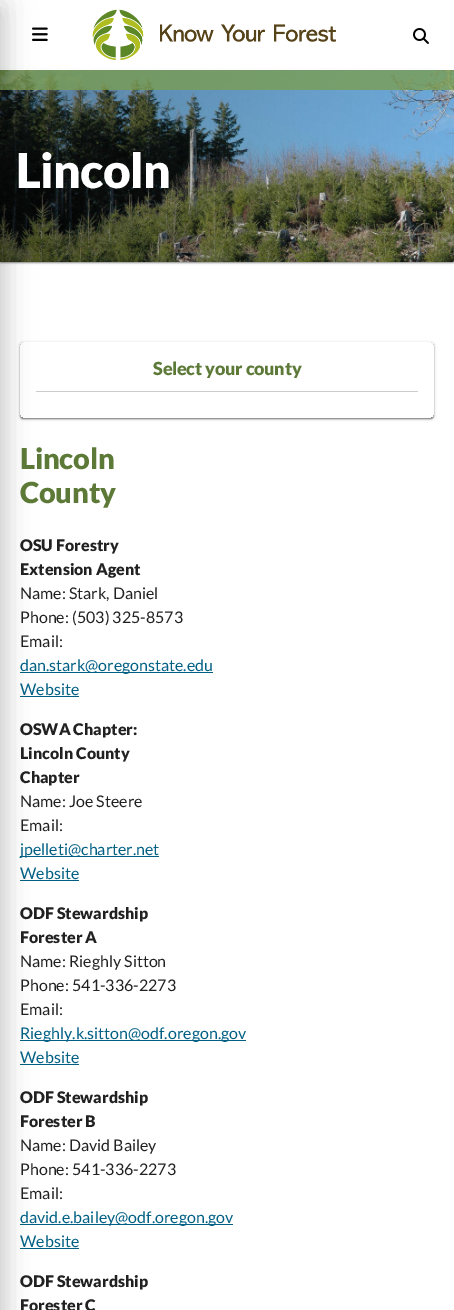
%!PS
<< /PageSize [454 1310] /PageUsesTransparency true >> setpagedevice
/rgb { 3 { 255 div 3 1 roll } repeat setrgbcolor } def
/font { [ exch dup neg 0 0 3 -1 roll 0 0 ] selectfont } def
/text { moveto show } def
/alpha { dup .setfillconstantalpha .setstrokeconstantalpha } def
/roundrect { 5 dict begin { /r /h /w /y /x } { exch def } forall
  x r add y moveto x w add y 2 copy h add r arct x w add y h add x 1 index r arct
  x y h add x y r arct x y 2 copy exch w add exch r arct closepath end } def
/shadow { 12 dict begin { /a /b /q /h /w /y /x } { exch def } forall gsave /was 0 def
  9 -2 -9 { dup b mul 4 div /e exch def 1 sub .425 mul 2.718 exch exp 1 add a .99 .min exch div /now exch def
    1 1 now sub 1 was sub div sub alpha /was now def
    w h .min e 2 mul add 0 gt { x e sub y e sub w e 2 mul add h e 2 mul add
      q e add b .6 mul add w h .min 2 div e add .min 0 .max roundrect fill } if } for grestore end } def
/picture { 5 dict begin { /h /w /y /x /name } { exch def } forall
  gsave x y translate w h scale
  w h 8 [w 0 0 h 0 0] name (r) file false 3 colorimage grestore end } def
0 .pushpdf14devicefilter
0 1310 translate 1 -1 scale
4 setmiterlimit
255 255 255 rgb
0 0 454 1310 rectfill
0 0 0 rgb
0 71 454 192 0 1.5 0.12 shadow
0 71 454 192 0 0.5 0.14 shadow
1 73 452 190 0 0.5 0.2 shadow
(img_04.rgb) 0 70 454 192 picture
0.75 alpha
123 158 76 rgb
0 70 454 20 rectfill
1 alpha
255 255 255 rgb
0 69 454 1 rectfill
(img_01.rgb) 32 27 16 14 picture
gsave
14 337 moveto 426 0 rlineto 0 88 rlineto -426 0 rlineto closepath 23 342 moveto 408 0 rlineto 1.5 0 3 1.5 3 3 rcurveto 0 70 rlineto 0 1.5 -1.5 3 -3 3 rcurveto -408 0 rlineto -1.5 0 -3 -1.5 -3 -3 rcurveto 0 -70 rlineto 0 -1.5 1.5 -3 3 -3 rcurveto closepath eoclip newpath
0 0 0 rgb
20 343 414 76 3 1.5 0.2 shadow
grestore
gsave
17 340 moveto 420 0 rlineto 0 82 rlineto -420 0 rlineto closepath 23 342 moveto 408 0 rlineto 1.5 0 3 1.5 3 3 rcurveto 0 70 rlineto 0 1.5 -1.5 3 -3 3 rcurveto -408 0 rlineto -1.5 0 -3 -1.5 -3 -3 rcurveto 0 -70 rlineto 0 -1.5 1.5 -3 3 -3 rcurveto closepath eoclip newpath
0 0 0 rgb
20 343 414 76 3 0.5 0.2 shadow
grestore
gsave
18 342 moveto 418 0 rlineto 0 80 rlineto -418 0 rlineto closepath 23 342 moveto 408 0 rlineto 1.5 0 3 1.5 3 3 rcurveto 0 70 rlineto 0 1.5 -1.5 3 -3 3 rcurveto -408 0 rlineto -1.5 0 -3 -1.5 -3 -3 rcurveto 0 -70 rlineto 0 -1.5 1.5 -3 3 -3 rcurveto closepath eoclip newpath
0 0 0 rgb
21 345 412 74 2 0.5 0.2 shadow
grestore
204 204 204 rgb
36 391 382 1 rectfill
0 95 131 rgb
20 672 193 1 rectfill
20 696 59 1 rectfill
20 856 139 1 rectfill
20 880 59 1 rectfill
20 1040 226 1 rectfill
20 1064 59 1 rectfill
20 1224 213 1 rectfill
20 1248 59 1 rectfill
0 0 0 rgb
-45 1 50 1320 0 15 0.12 shadow
-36 14 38 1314 0 12 0.14 shadow
(img_02.rgb) 92 9 244 52 picture
(img_03.rgb) 413 28 16 16 picture
/Lato-Black 48 font
255 255 255 rgb
16 188 moveto -0.75 0 (Lincoln) ashow
/Lato-Black 18 font
93 121 56 rgb
153 375 moveto -0.25 0 (Select your county) ashow
/Lato-Black 29 font
20 469 moveto -0.25 0 (Lincoln) ashow
20 503 moveto -0.25 0 (County) ashow
/Lato-Black 16 font
33 33 33 rgb
(OSU Forestry) 20 551 text
(Extension Agent) 20 575 text
/Lato-Regular 16 font
(Name: Stark, Daniel) 20 599 text
(Phone: \(503\) 325-8573) 20 623 text
(Email:) 20 647 text
0 95 131 rgb
(dan.stark@oregonstate.edu) 20 671 text
(Website) 20 695 text
/Lato-Black 16 font
33 33 33 rgb
(OSWA Chapter:) 20 735 text
(Lincoln County) 20 759 text
(Chapter) 20 783 text
/Lato-Regular 16 font
(Name: Joe Steere) 20 807 text
(Email:) 20 831 text
0 95 131 rgb
(jpelleti@charter.net) 20 855 text
(Website) 20 879 text
/Lato-Black 16 font
33 33 33 rgb
(ODF Stewardship) 20 919 text
(Forester A) 20 943 text
/Lato-Regular 16 font
(Name: Rieghly Sitton) 20 967 text
(Phone: 541-336-2273) 20 991 text
(Email:) 20 1015 text
0 95 131 rgb
(Rieghly.k.sitton@odf.oregon.gov) 20 1039 text
(Website) 20 1063 text
/Lato-Black 16 font
33 33 33 rgb
(ODF Stewardship) 20 1103 text
(Forester B) 20 1127 text
/Lato-Regular 16 font
(Name: David Bailey) 20 1151 text
(Phone: 541-336-2273) 20 1175 text
(Email:) 20 1199 text
0 95 131 rgb
(david.e.bailey@odf.oregon.gov) 20 1223 text
(Website) 20 1247 text
/Lato-Black 16 font
33 33 33 rgb
(ODF Stewardship) 20 1287 text
(Forester C) 20 1311 text
.poppdf14devicefilter showpage
